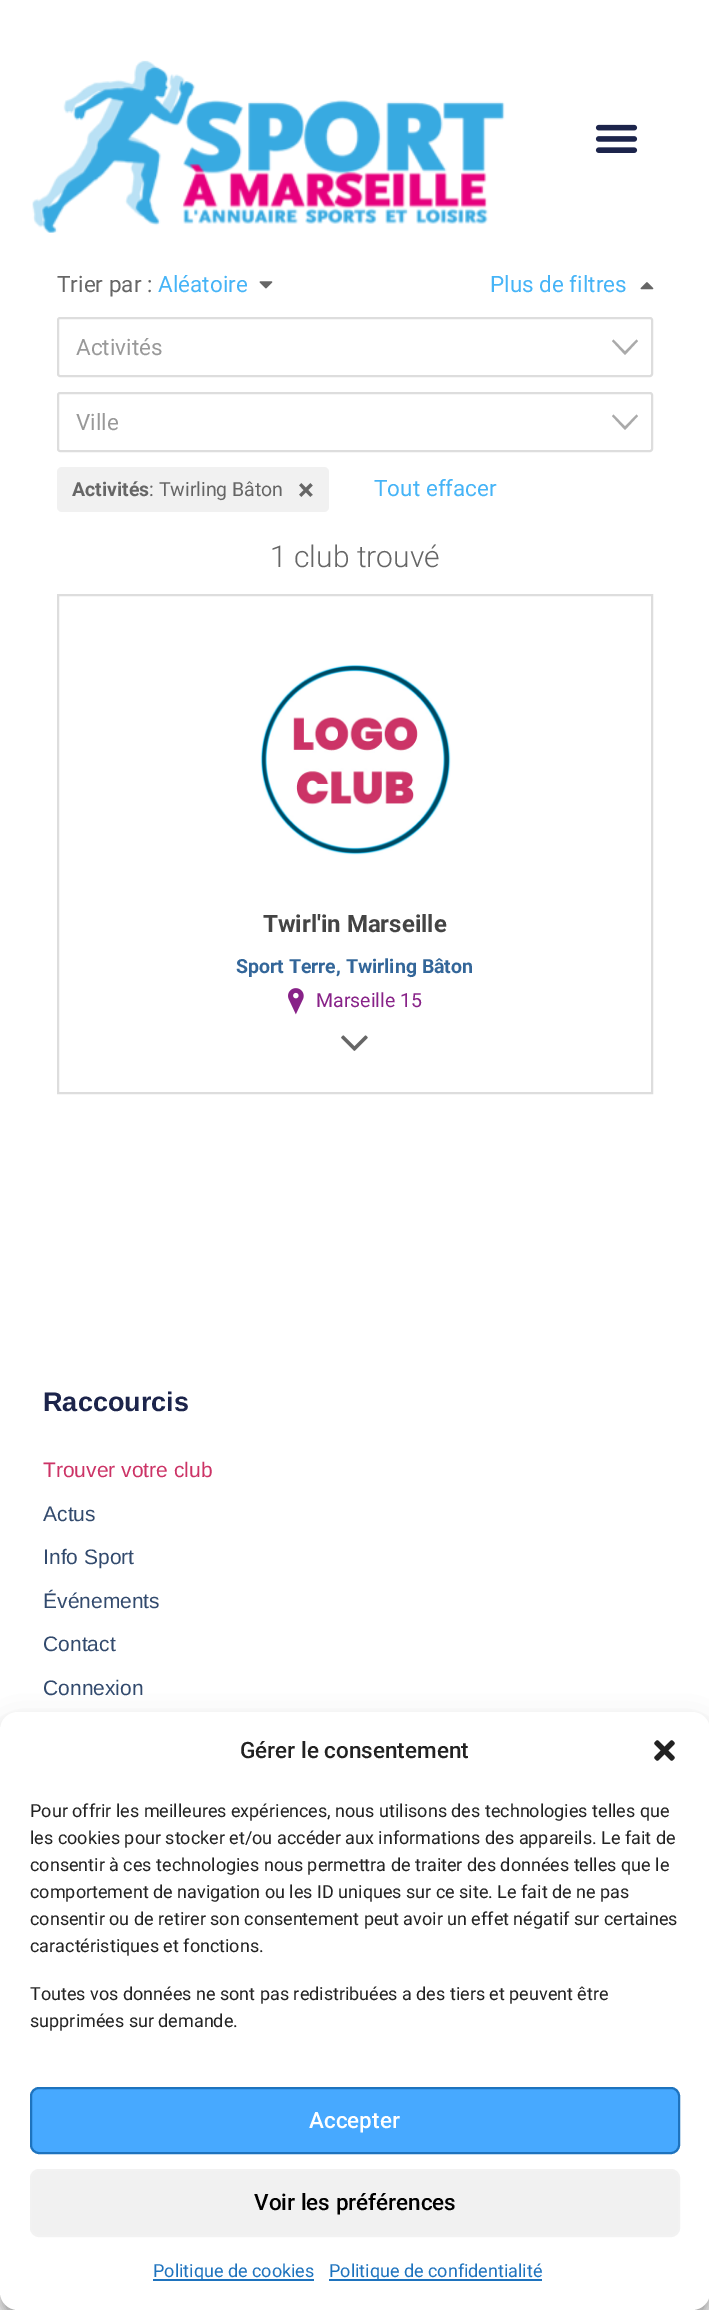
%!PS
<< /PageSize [709 2310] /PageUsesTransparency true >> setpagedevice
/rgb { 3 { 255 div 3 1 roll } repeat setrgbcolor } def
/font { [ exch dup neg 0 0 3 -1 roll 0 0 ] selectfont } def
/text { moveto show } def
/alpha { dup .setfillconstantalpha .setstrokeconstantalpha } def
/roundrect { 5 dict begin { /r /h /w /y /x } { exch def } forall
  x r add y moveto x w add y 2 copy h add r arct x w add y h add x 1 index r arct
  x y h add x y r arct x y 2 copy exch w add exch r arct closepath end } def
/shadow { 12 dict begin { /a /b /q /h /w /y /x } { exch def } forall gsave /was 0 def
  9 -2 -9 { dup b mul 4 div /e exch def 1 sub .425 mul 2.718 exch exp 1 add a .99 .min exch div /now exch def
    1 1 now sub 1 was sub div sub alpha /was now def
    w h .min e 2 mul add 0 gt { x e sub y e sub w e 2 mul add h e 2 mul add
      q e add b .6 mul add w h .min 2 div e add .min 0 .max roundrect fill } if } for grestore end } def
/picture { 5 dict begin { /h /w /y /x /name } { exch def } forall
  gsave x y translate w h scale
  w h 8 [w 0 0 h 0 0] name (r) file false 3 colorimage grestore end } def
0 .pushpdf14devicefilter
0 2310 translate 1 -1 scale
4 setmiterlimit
255 255 255 rgb
0 0 709 2310 rectfill
(img_01.rgb) 32 60 473 173 picture
(img_02.rgb) 595 124 43 29 picture
(img_03.rgb) 259 281 14 8 picture
(img_04.rgb) 640 282 14 8 picture
221 221 221 rgb
2 setlinewidth
58 318 594 58 2 roundrect stroke
170 170 170 rgb
636.5 339.5 moveto 1.5 1.5 rlineto -13 14 rlineto -13 -14 rlineto 1.5 -1.5 rlineto 11.5 12 rlineto closepath fill
221 221 221 rgb
58 393 594 58 2 roundrect stroke
170 170 170 rgb
636.5 414.5 moveto 1.5 1.5 rlineto -13 14 rlineto -13 -14 rlineto 1.5 -1.5 rlineto 11.5 12 rlineto closepath fill
241 241 241 rgb
57 467 272 45 5 roundrect fill
221 221 221 rgb
58 595 594 498 rectstroke
(img_05.rgb) 260 664 191 191 picture
(img_06.rgb) 288 988 16 27 picture
(img_07.rgb) 341 1035 27 16 picture
0 0 0 rgb
0 1721 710 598 18 4.5 0.23 shadow
0 1727 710 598 18 15 0.19 shadow
255 255 255 rgb
0 1712 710 598 18 roundrect fill
(img_08.rgb) 654 1740 21 21 picture
71 169 255 rgb
31 2088 648 65 8 roundrect gsave fill grestore
30 115 190 rgb
stroke
241 241 241 rgb
31 2170 648 66 8 roundrect gsave fill grestore
242 242 242 rgb
stroke
30 115 190 rgb
153 2279 161 2 rectfill
329 2279 213 2 rectfill
/Roboto-Regular 22.5 font
102 102 102 rgb
(Trier par :) 57 292 text
70 180 247 rgb
(Aléatoire) 158 292 text
(Plus de filtres) 490 292 text
153 153 153 rgb
(Activités) 76 355 text
(Ville) 76 430 text
/Roboto-Bold 19.5 font
102 102 102 rgb
(Activités) 72 496 text
/Roboto-Regular 19.5 font
(: Twirling Bâton) 149 496 text
/Roboto-Bold 30 font
(×) 298 500 text
/Roboto-Regular 22.5 font
70 180 247 rgb
(Tout effacer) 374 496 text
/Roboto-Light 30 font
102 102 102 rgb
(1 club trouvé) 270 567 text
/Roboto-Bold 24 font
68 68 68 rgb
(Twirl'in Marseille) 263 932 text
/Roboto-Bold 19.5 font
51 102 153 rgb
(Sport Terre, Twirling Bâton) 236 973 text
/Roboto-Regular 19.5 font
136 34 136 rgb
(Marseille 15) 316 1007 text
/LiberationSans-Bold 27 font
28 36 75 rgb
(Raccourcis) 43 1411 text
/LiberationSans-Regular 21 font
204 51 102 rgb
(Trouver votre club) 43 1477 text
50 74 109 rgb
(Actus) 43 1521 text
(Info Sport) 43 1564 text
(Événements) 43 1608 text
(Contact) 43 1651 text
(Connexion) 43 1695 text
/Roboto-Medium 22.5 font
34 34 34 rgb
(Gérer le consentement) 240 1758 text
/Roboto-Regular 18 font
(Pour offrir les meilleures expériences, nous utilisons des technologies telles que) 30 1817 text
(les cookies pour stocker et/ou accéder aux informations des appareils. Le fait de) 30 1844 text
(consentir à ces technologies nous permettra de traiter des données telles que le) 30 1871 text
(comportement de navigation ou les ID uniques sur ce site. Le fait de ne pas) 30 1898 text
(consentir ou de retirer son consentement peut avoir un effet négatif sur certaines) 30 1925 text
(caractéristiques et fonctions.) 30 1952 text
(Toutes vos données ne sont pas redistribuées a des tiers et peuvent être) 30 2000 text
(supprimées sur demande.) 30 2027 text
/Roboto-Medium 22.5 font
255 255 255 rgb
(Accepter) 309 2128 text
0 0 0 rgb
(Voir les préférences) 254 2210 text
/Roboto-Regular 18 font
30 115 190 rgb
(Politique de cookies) 153 2277 text
(Politique de confidentialité) 329 2277 text
.poppdf14devicefilter showpage
